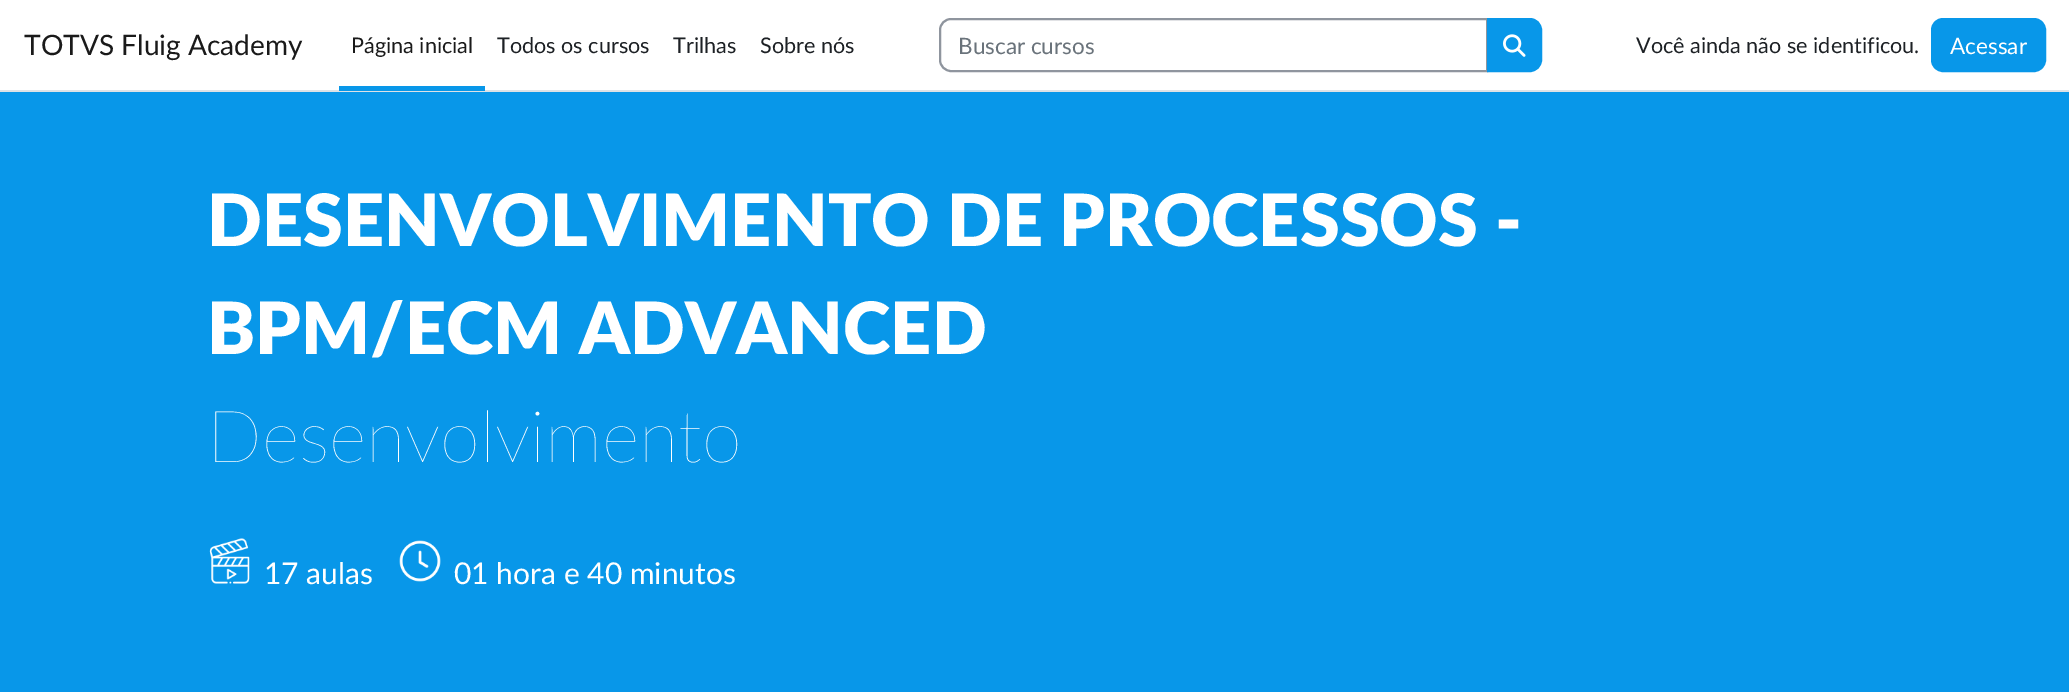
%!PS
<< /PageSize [2069 699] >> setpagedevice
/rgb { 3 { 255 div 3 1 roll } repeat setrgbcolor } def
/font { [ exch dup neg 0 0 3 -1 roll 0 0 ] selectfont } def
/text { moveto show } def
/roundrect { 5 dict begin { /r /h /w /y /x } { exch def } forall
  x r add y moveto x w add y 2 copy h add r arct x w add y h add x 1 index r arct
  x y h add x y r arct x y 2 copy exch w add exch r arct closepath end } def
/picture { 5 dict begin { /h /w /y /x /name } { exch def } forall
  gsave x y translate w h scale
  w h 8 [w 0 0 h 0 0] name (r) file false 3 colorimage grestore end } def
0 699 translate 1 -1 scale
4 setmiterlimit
255 255 255 rgb
0 0 2069 699 rectfill
222 226 230 rgb
0 90 2069 2 rectfill
8 151 233 rgb
339 86 146 5 rectfill
143 149 158 rgb
2 setlinewidth
951 19 moveto 536 0 rlineto 0 52 rlineto -536 0 rlineto -6 0 -11 -5 -11 -11 rcurveto 0 -30 rlineto 0 -6 5 -11 11 -11 rcurveto closepath stroke
8 151 233 rgb
1488 19 moveto 42 0 rlineto 6 0 11 5 11 11 rcurveto 0 30 rlineto 0 6 -5 11 -11 11 rcurveto -42 0 rlineto closepath gsave fill grestore
stroke
(img_01.rgb) 1503 34 23 23 picture
1932 19 113 52 11 roundrect gsave fill grestore
stroke
0 92 2069 600 rectfill
(img_02.rgb) 209 538 41 46 picture
(img_03.rgb) 399 540 42 42 picture
/Lato-Regular 28.1 font
26 26 26 rgb
(TOTVS Fluig Academy) 24 55 text
/Lato-Regular 21.6 font
(Página inicial) 351 53 text
29 33 37 rgb
(Todos os cursos) 497 53 text
(Trilhas) 673 53 text
(Sobre nós) 760 53 text
/Lato-Regular 22.5 font
106 115 123 rgb
(Buscar cursos) 958 54 text
/Lato-Regular 21.6 font
29 33 37 rgb
(Você ainda não se identificou.) 1636 53 text
/Lato-Regular 22.5 font
255 255 255 rgb
(Acessar) 1950 54 text
/Lato-ExtraBold 72 font
(DESENVOLVIMENTO DE PROCESSOS -) 207 246 text
(BPM/ECM ADVANCED) 207 354 text
/Lato-ExtraLight 72 font
(Desenvolvimento) 207 462 text
/Lato-Regular 30 font
(17 aulas) 264 584 text
(01 hora e 40 minutos) 454 584 text
showpage
